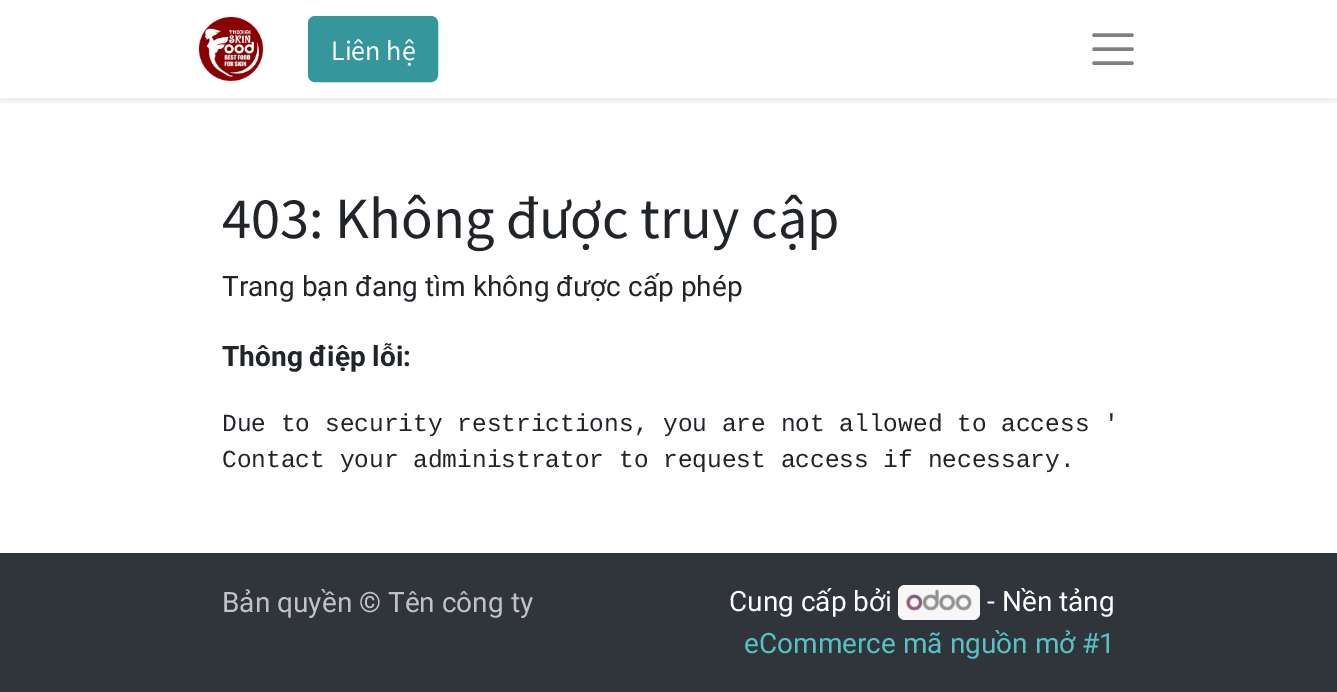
%!PS
<< /PageSize [1337 692] /PageUsesTransparency true >> setpagedevice
/rgb { 3 { 255 div 3 1 roll } repeat setrgbcolor } def
/font { [ exch dup neg 0 0 3 -1 roll 0 0 ] selectfont } def
/text { moveto show } def
/alpha { dup .setfillconstantalpha .setstrokeconstantalpha } def
/roundrect { 5 dict begin { /r /h /w /y /x } { exch def } forall
  x r add y moveto x w add y 2 copy h add r arct x w add y h add x 1 index r arct
  x y h add x y r arct x y 2 copy exch w add exch r arct closepath end } def
/shadow { 12 dict begin { /a /b /q /h /w /y /x } { exch def } forall gsave /was 0 def
  9 -2 -9 { dup b mul 4 div /e exch def 1 sub .425 mul 2.718 exch exp 1 add a .99 .min exch div /now exch def
    1 1 now sub 1 was sub div sub alpha /was now def
    w h .min e 2 mul add 0 gt { x e sub y e sub w e 2 mul add h e 2 mul add
      q e add b .6 mul add w h .min 2 div e add .min 0 .max roundrect fill } if } for grestore end } def
/picture { 5 dict begin { /h /w /y /x /name } { exch def } forall
  gsave x y translate w h scale
  w h 8 [w 0 0 h 0 0] name (r) file false 3 colorimage grestore end } def
0 .pushpdf14devicefilter
0 692 translate 1 -1 scale
4 setmiterlimit
255 255 255 rgb
0 0 1337 692 rectfill
gsave
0 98 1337 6 rectclip
0 0 0 rgb
0 4 1337 98 0 3.5 0.07 shadow
grestore
(img_01.rgb) 198 16 66 66 picture
53 151 156 rgb
309 17 128 64 6 roundrect gsave fill grestore
2 setlinewidth
stroke
128 128 128 rgb
3.5 setlinewidth
1 setlinecap
1094 35 moveto 38 0 rlineto 1094 49 moveto 38 0 rlineto 1094 63 moveto 38 0 rlineto stroke
48 53 59 rgb
0 553 1337 139 rectfill
247 247 247 rgb
898 585 82 35 7 roundrect fill
(img_02.rgb) 906 589 66 22 picture
/SourceSansPro-Regular 28 font
255 255 255 rgb
(Liên hệ) 331 60 text
/SourceSansPro-Regular 58.5 font
33 37 41 rgb
(403: Không được truy cập) 222 238 text
/Roboto-Regular 28 font
(Trang bạn đang tìm không được cấp phép) 222 296 text
/Roboto-Bold 28 font
(Thông điệp lỗi:) 222 366 text
/LiberationMono-Regular 24.5 font
(Due to security restrictions, you are not allowed to access ') 222 431 text
(Contact your administrator to request access if necessary.) 222 467 text
/Roboto-Regular 28 font
193 194 196 rgb
(Bản quyền © Tên công ty) 222 612 text
255 255 255 rgb
(Cung cấp bởi) 729 611 text
(- Nền tảng) 987 611 text
87 193 198 rgb
(eCommerce mã nguồn mở #1) 744 653 text
.poppdf14devicefilter showpage
